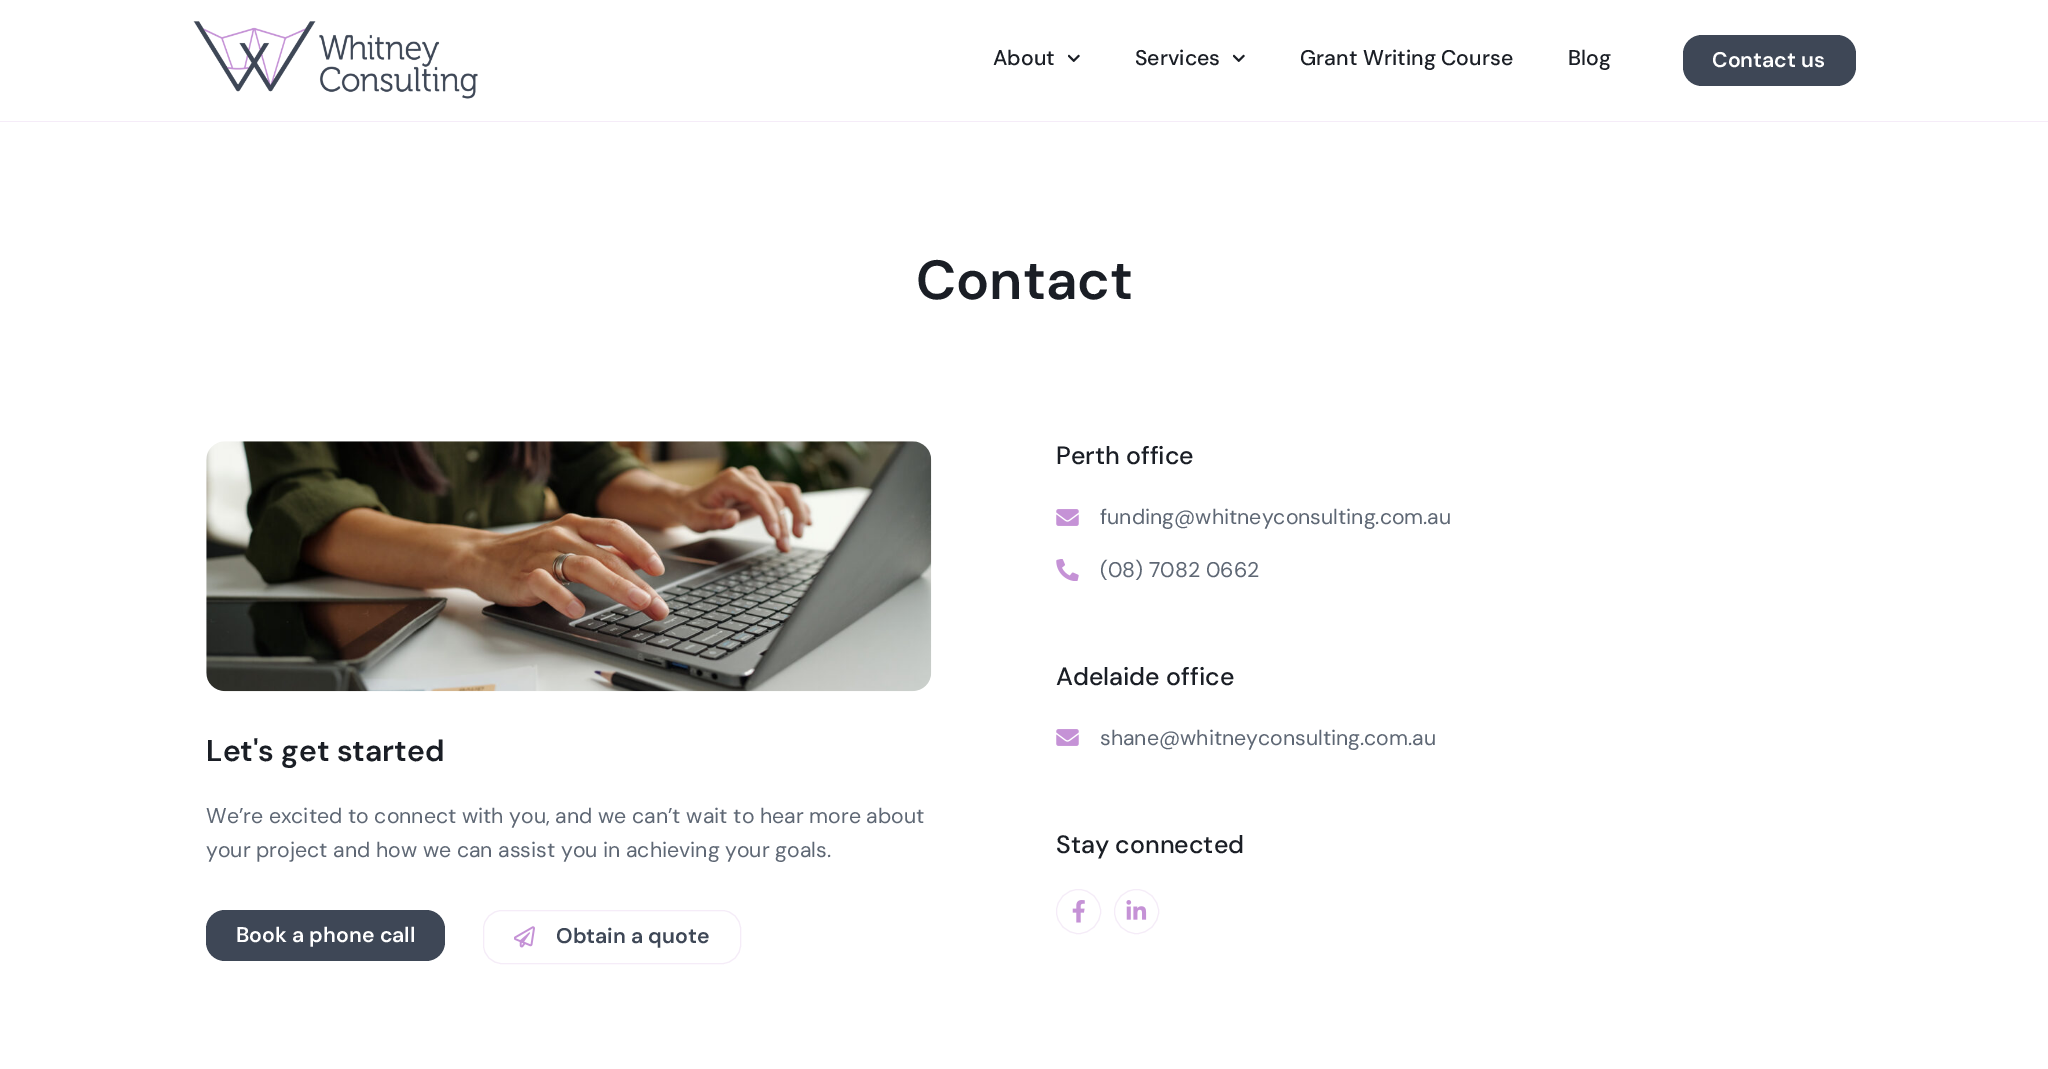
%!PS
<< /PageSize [2048 1069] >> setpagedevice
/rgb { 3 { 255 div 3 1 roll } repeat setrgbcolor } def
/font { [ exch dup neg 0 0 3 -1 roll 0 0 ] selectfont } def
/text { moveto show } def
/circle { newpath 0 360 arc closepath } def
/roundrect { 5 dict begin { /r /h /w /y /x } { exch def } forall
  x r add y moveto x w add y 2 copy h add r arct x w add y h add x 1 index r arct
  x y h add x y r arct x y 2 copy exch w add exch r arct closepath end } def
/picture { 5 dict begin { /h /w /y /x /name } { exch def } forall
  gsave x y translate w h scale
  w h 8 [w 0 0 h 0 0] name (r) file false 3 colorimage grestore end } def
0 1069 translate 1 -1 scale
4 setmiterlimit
255 255 255 rgb
0 0 2048 1069 rectfill
245 236 248 rgb
0 121 2048 1 rectfill
(img_01.rgb) 193 21 285 78 picture
(img_02.rgb) 1068 54 12 8 picture
(img_02.rgb) 1233 54 12 8 picture
62 71 86 rgb
1683 35 173 51 19 roundrect fill
(img_03.rgb) 206 441 726 251 picture
206 910 239 51 19 roundrect fill
245 236 248 rgb
483.5 910.5 257 53 18.5 roundrect stroke
(img_04.rgb) 514 926 21 22 picture
(img_05.rgb) 1056 509 23 17 picture
(img_06.rgb) 1056 559 23 22 picture
(img_05.rgb) 1056 729 23 17 picture
1078.5 911.5 22 circle stroke
(img_07.rgb) 1072 900 13 23 picture
1136.5 911.5 22 circle stroke
(img_08.rgb) 1126 900 21 20 picture
/DMSans-Medium 21.25 font
26 30 37 rgb
(About) 993 65 text
(Services) 1135 65 text
(Grant Writing Course) 1300 65 text
(Blog) 1568 65 text
/DMSans-SemiBold 21.25 font
255 255 255 rgb
(Contact us) 1712 67 text
/DMSans-SemiBold 55 font
26 30 37 rgb
(Contact) 916 299 text
/DMSans-SemiBold 30 font
(Let's get started) 206 761 text
/DMSans-Regular 21.25 font
94 103 116 rgb
(We’re excited to connect with you, and we can’t wait to hear more about) 206 823 text
(your project and how we can assist you in achieving your goals.) 206 857 text
/DMSans-SemiBold 21.25 font
255 255 255 rgb
(Book a phone call) 236 942 text
62 71 86 rgb
(Obtain a quote) 556 943 text
/DMSans-Medium 25 font
26 30 37 rgb
(Perth office) 1056 464 text
/DMSans-Regular 21.25 font
94 103 116 rgb
(funding@whitneyconsulting.com.au) 1100 524 text
(\(08\) 7082 0662) 1100 577 text
/DMSans-Medium 25 font
26 30 37 rgb
(Adelaide office) 1056 685 text
/DMSans-Regular 21.25 font
94 103 116 rgb
(shane@whitneyconsulting.com.au) 1100 745 text
/DMSans-Medium 25 font
26 30 37 rgb
(Stay connected) 1056 853 text
showpage
